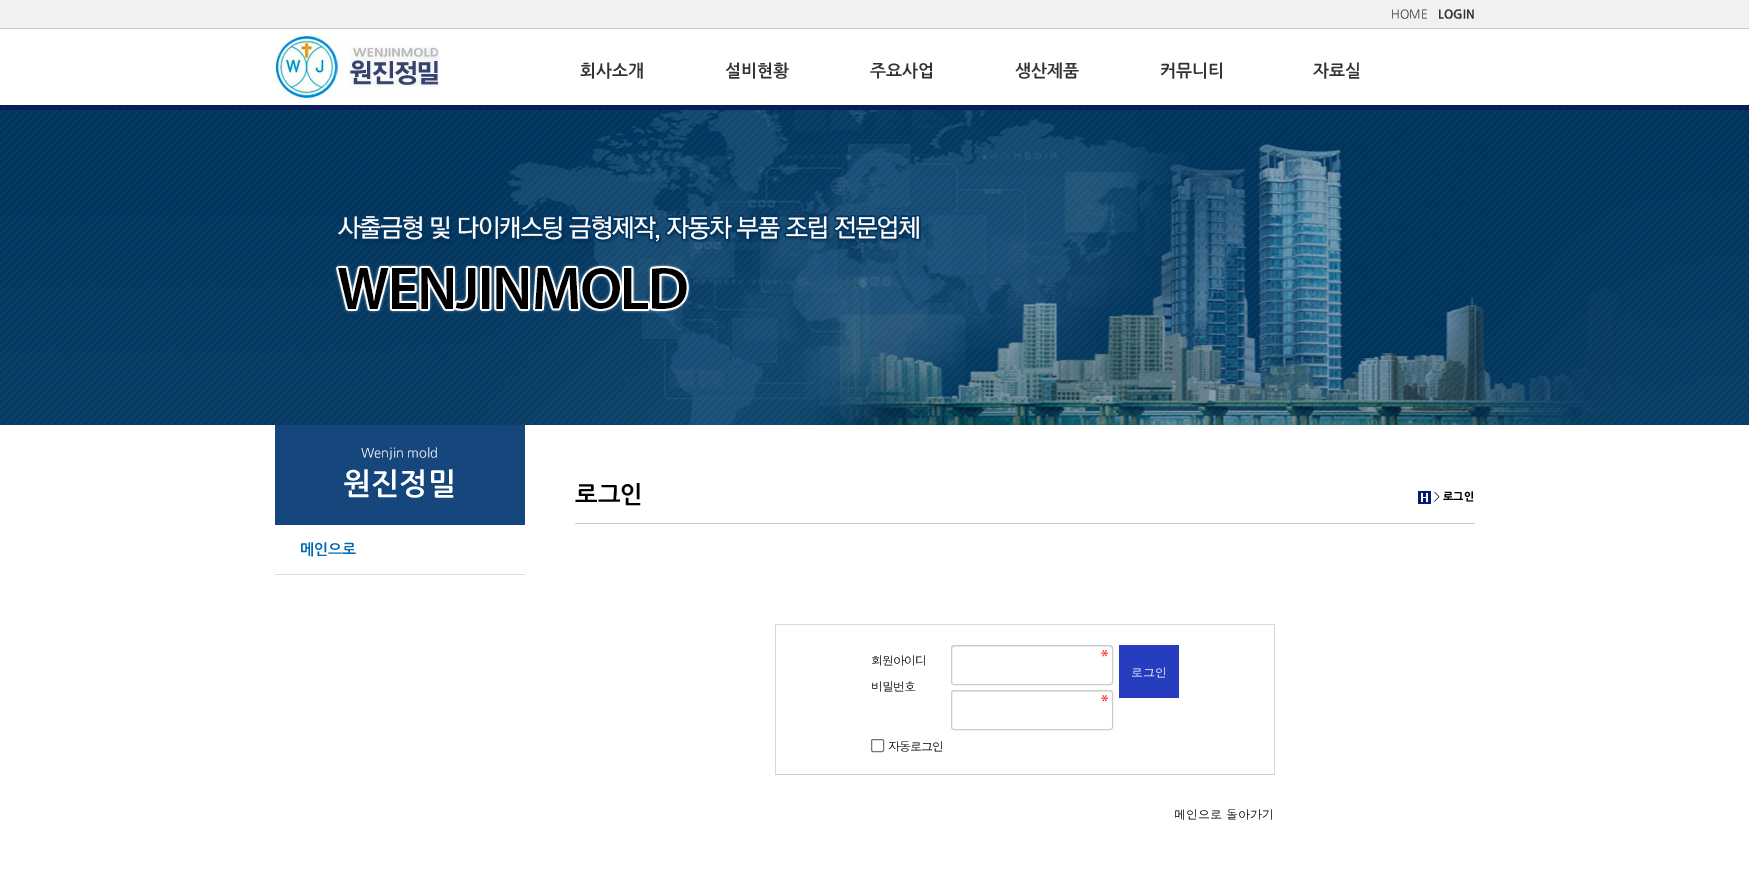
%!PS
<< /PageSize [1749 895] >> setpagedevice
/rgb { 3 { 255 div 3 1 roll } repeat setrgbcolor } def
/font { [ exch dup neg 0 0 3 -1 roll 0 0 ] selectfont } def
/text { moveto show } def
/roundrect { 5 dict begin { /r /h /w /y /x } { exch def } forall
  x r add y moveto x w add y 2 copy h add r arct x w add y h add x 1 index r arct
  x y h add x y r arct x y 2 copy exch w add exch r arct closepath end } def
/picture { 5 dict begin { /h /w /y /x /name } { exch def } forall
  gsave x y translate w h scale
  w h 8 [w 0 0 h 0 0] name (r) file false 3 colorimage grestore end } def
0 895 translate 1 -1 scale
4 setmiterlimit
255 255 255 rgb
0 0 1749 895 rectfill
9 30 89 rgb
0 105 1749 5 rectfill
241 241 241 rgb
0 0 1749 28 rectfill
204 204 204 rgb
0 28 1749 1 rectfill
(img_01.rgb) 275 35 164 63 picture
(img_02.rgb) 0 110 1749 315 picture
(img_03.rgb) 335 215 587 98 picture
(img_04.rgb) 275 425 250 100 picture
221 221 221 rgb
275 574 250 1 rectfill
204 204 204 rgb
575 523 900 1 rectfill
(img_05.rgb) 1418 491 13 13 picture
207 222 216 rgb
775 624 500 1 rectfill
1274 624 1 150 rectfill
775 624 1 150 rectfill
(img_06.rgb) 1101 650 7 7 picture
236 236 236 rgb
954 647 moveto 156 0 rlineto 1 0 2 1 2 2 rcurveto 0 -1 0 -3 -2 -3 rcurveto -156 0 rlineto -2 0 -2 2 -2 3 rcurveto 0 -1 1 -2 2 -2 rcurveto closepath fill
204 204 204 rgb
951.5 645.5 161 39 2.5 roundrect stroke
37 61 190 rgb
1119 645 60 53 rectfill
(img_06.rgb) 1101 695 7 7 picture
236 236 236 rgb
954 692 moveto 156 0 rlineto 1 0 2 1 2 2 rcurveto 0 -1 0 -3 -2 -3 rcurveto -156 0 rlineto -2 0 -2 2 -2 3 rcurveto 0 -1 1 -2 2 -2 rcurveto closepath fill
204 204 204 rgb
951.5 690.5 161 39 2.5 roundrect stroke
118 118 118 rgb
871.5 739.5 12 12 1.5 roundrect stroke
204 204 204 rgb
775 774 500 1 rectfill
/NanumGothic-Regular 12 font
51 51 51 rgb
(HOME) 1391 18 text
/NanumGothic-ExtraBold 12 font
(LOGIN) 1438 18 text
/NanumGothic-Bold 17 font
(회사소개) 580 76 text
(설비현황) 725 76 text
(주요사업) 870 76 text
(생산제품) 1015 76 text
(커뮤니티) 1160 76 text
(자료실) 1313 76 text
/NanumGothic-Regular 13 font
255 255 255 rgb
(Wenjin mold) 361 457 text
/NanumGothic-Bold 30 font
(원진정밀) 343 493 text
/NanumGothic-Bold 15 font
0 106 180 rgb
(메인으로) 300 554 text
/NanumGothic-Bold 24 font
0 0 0 rgb
(로그인) 575 502 text
/NanumGothic-Regular 11 font
(>) 1434 500 text
/NanumGothic-ExtraBold 11 font
(로그인) 1443 500 text
/Dotum-Regular 12 font
871 665 moveto -1 0 (회원아이디) ashow
255 255 255 rgb
(로그인) 1131 677 text
0 0 0 rgb
871 691 moveto -1 0 (비밀번호) ashow
888 751 moveto -1 0 (자동로그인) ashow
(메인으로 돌아가기) 1174 819 text
showpage
